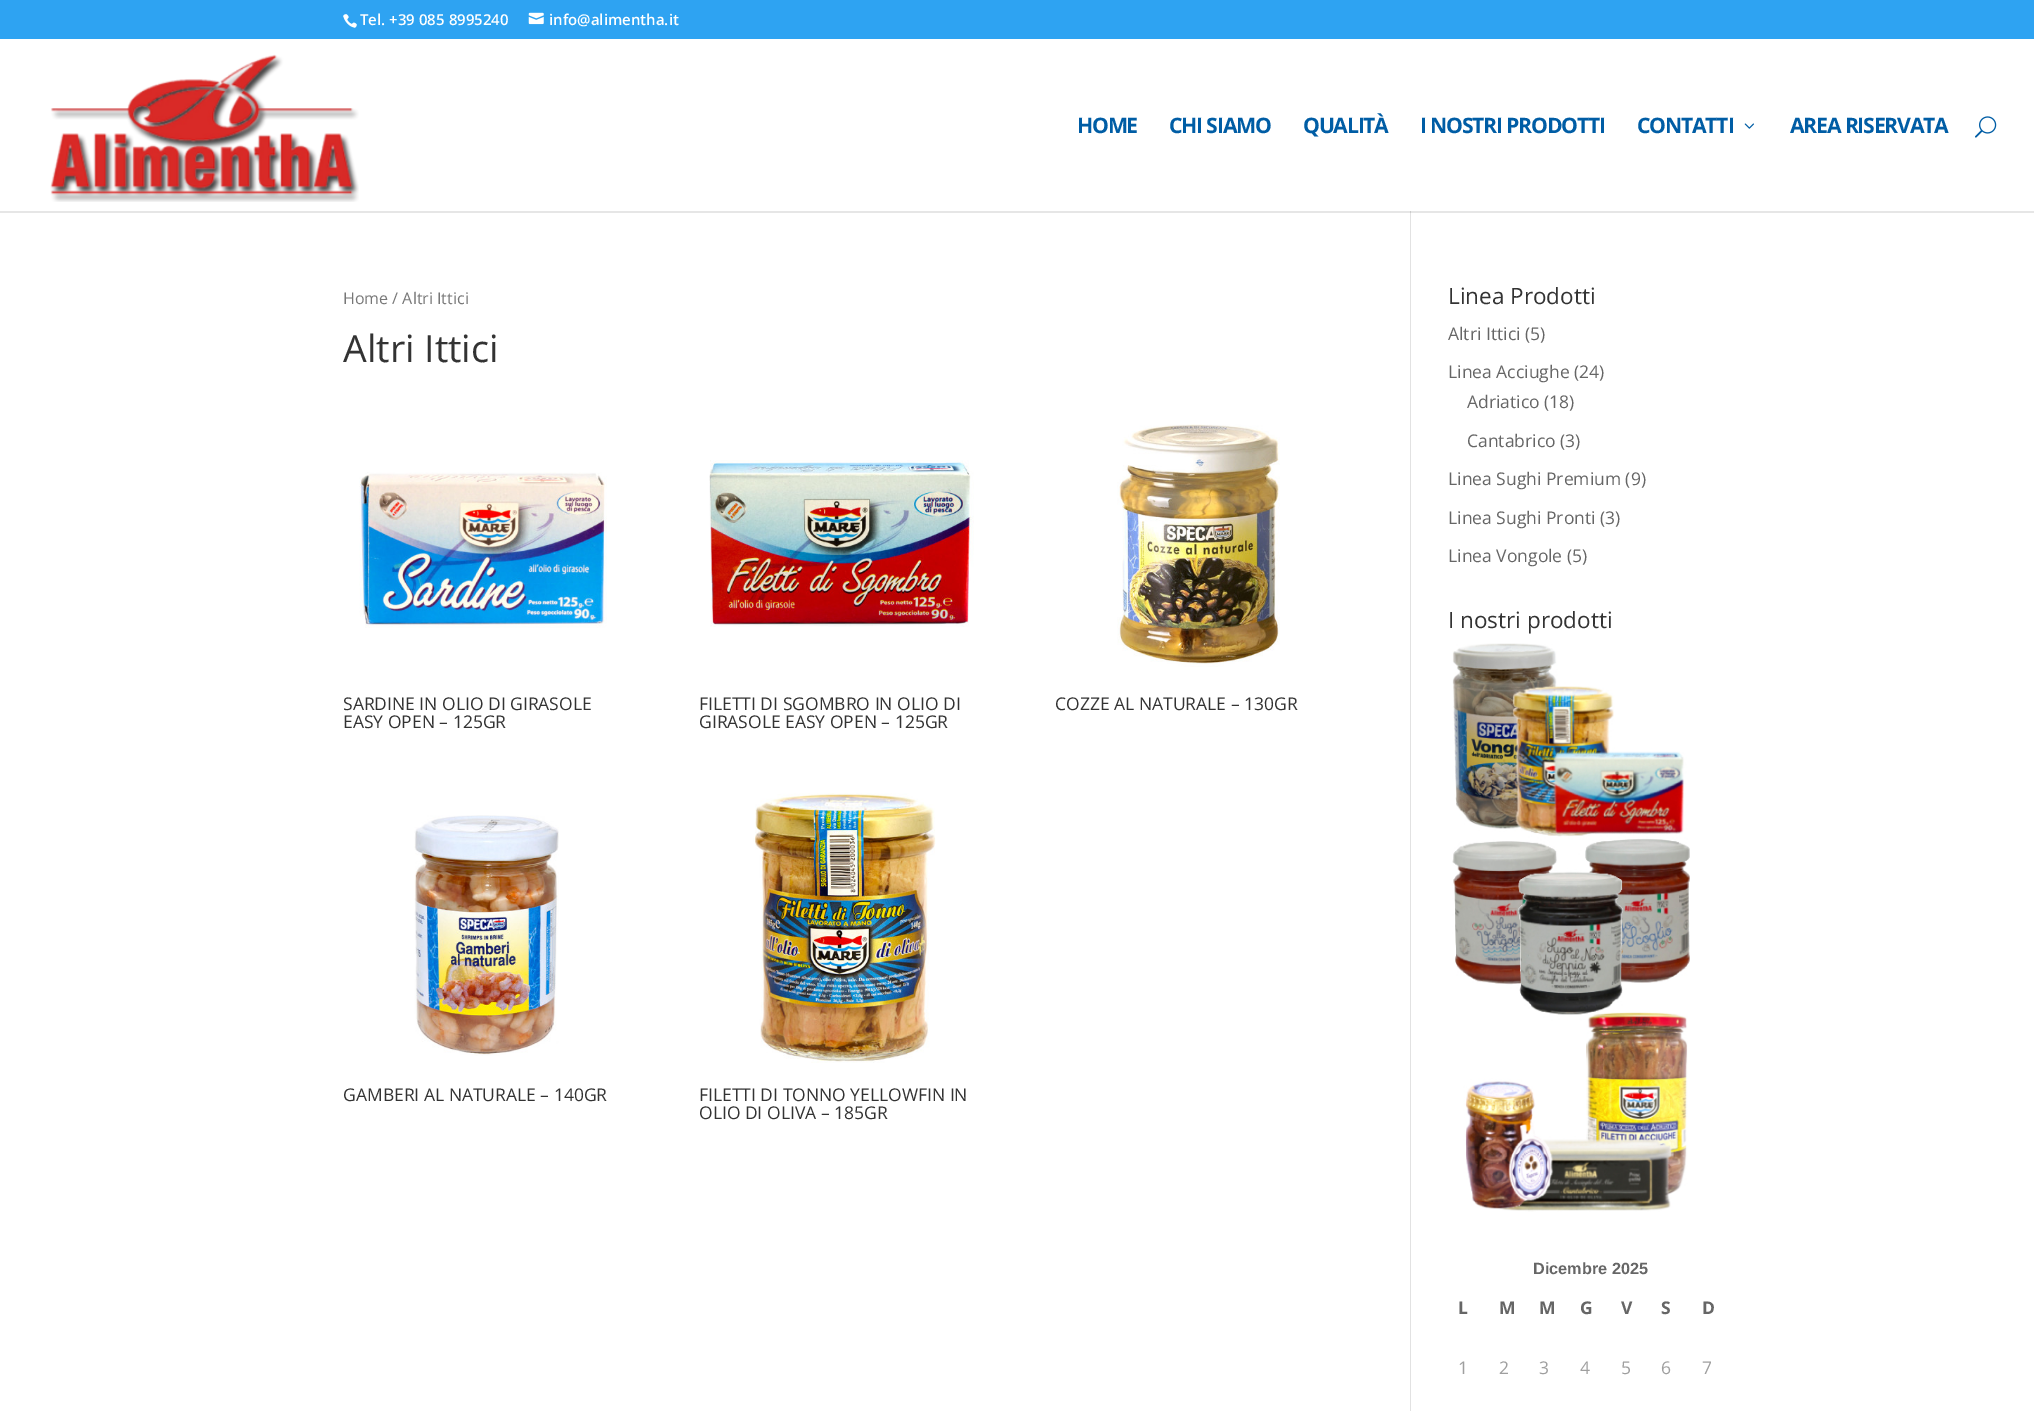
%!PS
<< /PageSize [2034 1411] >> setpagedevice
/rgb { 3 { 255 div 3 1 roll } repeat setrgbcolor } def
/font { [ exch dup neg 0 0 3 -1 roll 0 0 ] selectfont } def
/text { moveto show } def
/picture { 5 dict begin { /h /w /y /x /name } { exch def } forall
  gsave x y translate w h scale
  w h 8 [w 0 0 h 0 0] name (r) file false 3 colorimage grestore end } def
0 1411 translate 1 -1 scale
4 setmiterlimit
255 255 255 rgb
0 0 2034 1411 rectfill
230 230 230 rgb
0 211 2034 2 rectfill
46 163 242 rgb
0 0 2034 39 rectfill
(img_01.rgb) 343 14 14 14 picture
(img_02.rgb) 528 12 16 13 picture
(img_03.rgb) 50 54 309 148 picture
(img_04.rgb) 1744 123 10 6 picture
(img_05.rgb) 1975 116 22 22 picture
226 226 226 rgb
1410 211 1 1200 rectfill
203 203 203 rgb
1410 211 1 2 rectfill
(img_06.rgb) 359 472 248 156 picture
(img_07.rgb) 709 460 265 167 picture
(img_08.rgb) 1117 424 163 243 picture
(img_09.rgb) 414 815 145 241 picture
(img_10.rgb) 753 793 183 270 picture
(img_11.rgb) 1452 643 238 569 picture
/OpenSans-SemiBold 15 font
255 255 255 rgb
(Tel. +39 085 8995240) 360 25 text
(info@alimentha.it) 549 25 text
/OpenSans-Bold 21.25 font
0 93 165 rgb
1077 133 moveto -1.25 0 (HOME) ashow
1169 133 moveto -1.25 0 (CHI SIAMO) ashow
1303 133 moveto -1.25 0 (QUALITÀ) ashow
1420 133 moveto -1.25 0 (I NOSTRI PRODOTTI) ashow
1637 133 moveto -1.25 0 (CONTATTI) ashow
1790 133 moveto -1.25 0 (AREA RISERVATA) ashow
/OpenSans-Regular 16 font
119 119 119 rgb
(Home / Altri Ittici) 343 304 text
/OpenSans-Regular 37.5 font
51 51 51 rgb
(Altri Ittici) 343 362 text
/OpenSans-Regular 17.5 font
(SARDINE IN OLIO DI GIRASOLE) 343 710 text
(EASY OPEN – 125GR) 343 728 text
(FILETTI DI SGOMBRO IN OLIO DI) 699 710 text
(GIRASOLE EASY OPEN – 125GR) 699 728 text
(COZZE AL NATURALE – 130GR) 1055 710 text
(GAMBERI AL NATURALE – 140GR) 343 1101 text
(FILETTI DI TONNO YELLOWFIN IN) 699 1101 text
(OLIO DI OLIVA – 185GR) 699 1119 text
/OpenSans-Regular 22.5 font
(Linea Prodotti) 1448 304 text
/OpenSans-Regular 17.5 font
102 102 102 rgb
(Altri Ittici \(5\)) 1448 340 text
(Linea Acciughe \(24\)) 1448 378 text
(Adriatico \(18\)) 1467 408 text
(Cantabrico \(3\)) 1467 447 text
(Linea Sughi Premium \(9\)) 1448 485 text
(Linea Sughi Pronti \(3\)) 1448 524 text
(Linea Vongole \(5\)) 1448 562 text
/OpenSans-Regular 22.5 font
51 51 51 rgb
(I nostri prodotti) 1448 628 text
/LiberationSans-Bold 16.25 font
102 102 102 rgb
(Dicembre 2025) 1533 1274 text
/OpenSans-Bold 17.5 font
(L) 1458 1314 text
(M) 1499 1314 text
(M) 1539 1314 text
(G) 1580 1314 text
(V) 1621 1314 text
(S) 1661 1314 text
(D) 1702 1314 text
/OpenSans-Regular 17.5 font
159 159 159 rgb
(1) 1458 1374 text
(2) 1499 1374 text
(3) 1539 1374 text
(4) 1580 1374 text
(5) 1621 1374 text
(6) 1661 1374 text
(7) 1702 1374 text
showpage
